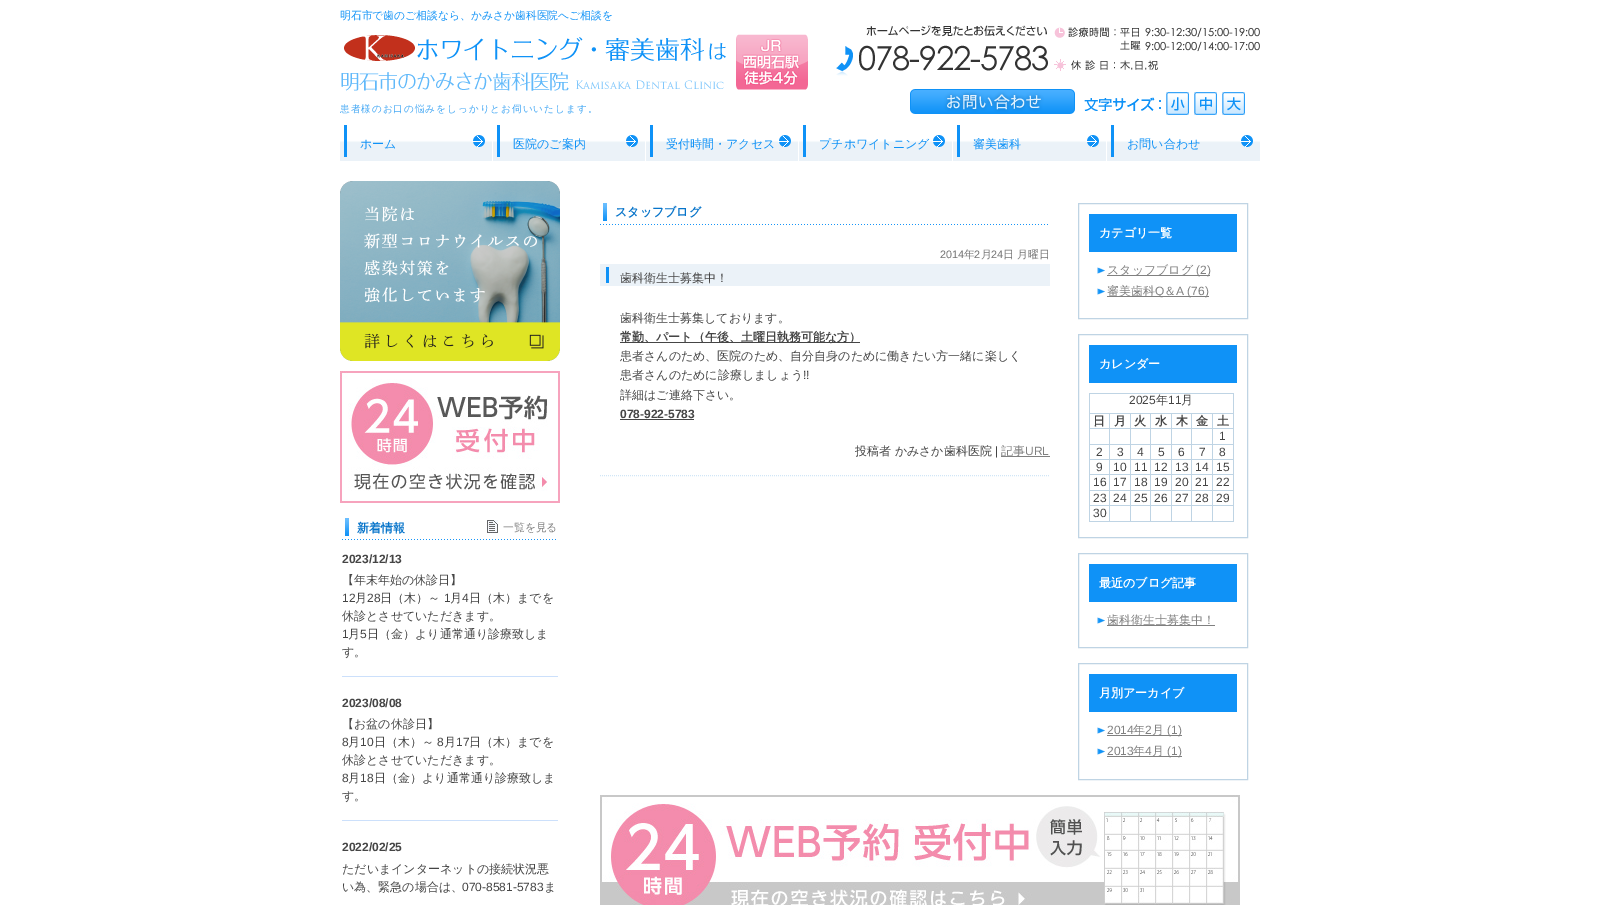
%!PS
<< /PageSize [1599 905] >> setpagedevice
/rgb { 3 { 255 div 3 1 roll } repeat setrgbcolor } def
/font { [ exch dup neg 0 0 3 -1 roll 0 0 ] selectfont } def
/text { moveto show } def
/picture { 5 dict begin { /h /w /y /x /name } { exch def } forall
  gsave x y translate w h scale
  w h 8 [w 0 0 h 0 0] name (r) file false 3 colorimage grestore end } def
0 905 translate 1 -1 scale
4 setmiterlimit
255 255 255 rgb
0 0 1599 905 rectfill
(img_01.rgb) 341 34 467 57 picture
(img_02.rgb) 836 25 424 51 picture
(img_03.rgb) 910 89 165 25 picture
(img_04.rgb) 1084 97 77 14 picture
(img_05.rgb) 1166 92 23 23 picture
(img_06.rgb) 1194 92 23 23 picture
(img_07.rgb) 1222 92 23 23 picture
(img_08.rgb) 340 125 152 36 picture
(img_08.rgb) 493 125 152 36 picture
(img_08.rgb) 646 125 152 36 picture
(img_09.rgb) 799 125 153 36 picture
(img_09.rgb) 953 125 153 36 picture
(img_09.rgb) 1107 125 153 36 picture
(img_10.rgb) 340 181 220 180 picture
(img_11.rgb) 340 371 220 132 picture
(img_12.rgb) 342 518 214 22 picture
(img_13.rgb) 487 520 11 13 picture
204 224 251 rgb
342 676 216 1 rectfill
342 820 216 1 rectfill
(img_14.rgb) 600 203 448 22 picture
209 230 247 rgb
[1 1] 0 setdash
600 475.5 moveto 450 0 rlineto stroke
(img_15.rgb) 600 264 450 22 picture
69 69 69 rgb
620 342 240 1 rectfill
620 419 74 1 rectfill
128 128 128 rgb
1001 456 49 1 rectfill
191 212 228 rgb
[] 0 setdash
1078.5 203.5 169 115 rectstroke
15 146 247 rgb
1089 214 148 38 rectfill
(img_16.rgb) 1097 267 8 7 picture
128 128 128 rgb
1107 275 103 1 rectfill
(img_16.rgb) 1097 288 8 7 picture
1107 296 102 1 rectfill
191 212 228 rgb
1078.5 334.5 169 203 rectstroke
15 146 247 rgb
1089 345 148 38 rectfill
191 212 228 rgb
1089 393 145 1 rectfill
1233 393 1 129 rectfill
1089 521 145 1 rectfill
1089 393 1 129 rectfill
1212 413 22 1 rectfill
1212 428 22 1 rectfill
1212 444 22 1 rectfill
1212 459 22 1 rectfill
1212 474 22 1 rectfill
1212 490 22 1 rectfill
1212 505 22 1 rectfill
1212 505 1 17 rectfill
1191 505 22 1 rectfill
1212 490 1 16 rectfill
1191 490 22 1 rectfill
1212 474 1 17 rectfill
1191 474 22 1 rectfill
1212 459 1 16 rectfill
1191 459 22 1 rectfill
1212 444 1 16 rectfill
1191 444 22 1 rectfill
1212 428 1 17 rectfill
1191 428 22 1 rectfill
1212 413 1 16 rectfill
1191 413 22 1 rectfill
1191 505 1 17 rectfill
1171 505 21 1 rectfill
1191 490 1 16 rectfill
1171 490 21 1 rectfill
1191 474 1 17 rectfill
1171 474 21 1 rectfill
1191 459 1 16 rectfill
1171 459 21 1 rectfill
1191 444 1 16 rectfill
1171 444 21 1 rectfill
1191 428 1 17 rectfill
1171 428 21 1 rectfill
1191 413 1 16 rectfill
1171 413 21 1 rectfill
1171 505 1 17 rectfill
1150 505 22 1 rectfill
1171 490 1 16 rectfill
1150 490 22 1 rectfill
1171 474 1 17 rectfill
1150 474 22 1 rectfill
1171 459 1 16 rectfill
1150 459 22 1 rectfill
1171 444 1 16 rectfill
1150 444 22 1 rectfill
1171 428 1 17 rectfill
1150 428 22 1 rectfill
1171 413 1 16 rectfill
1150 413 22 1 rectfill
1150 505 1 17 rectfill
1130 505 21 1 rectfill
1150 490 1 16 rectfill
1130 490 21 1 rectfill
1150 474 1 17 rectfill
1130 474 21 1 rectfill
1150 459 1 16 rectfill
1130 459 21 1 rectfill
1150 444 1 16 rectfill
1130 444 21 1 rectfill
1150 428 1 17 rectfill
1130 428 21 1 rectfill
1150 413 1 16 rectfill
1130 413 21 1 rectfill
1130 505 1 17 rectfill
1109 505 22 1 rectfill
1130 490 1 16 rectfill
1109 490 22 1 rectfill
1130 474 1 17 rectfill
1109 474 22 1 rectfill
1130 459 1 16 rectfill
1109 459 22 1 rectfill
1130 444 1 16 rectfill
1109 444 22 1 rectfill
1130 428 1 17 rectfill
1109 428 22 1 rectfill
1130 413 1 16 rectfill
1109 413 22 1 rectfill
1109 505 1 17 rectfill
1089 505 21 1 rectfill
1109 490 1 16 rectfill
1089 490 21 1 rectfill
1109 474 1 17 rectfill
1089 474 21 1 rectfill
1109 459 1 16 rectfill
1089 459 21 1 rectfill
1109 444 1 16 rectfill
1089 444 21 1 rectfill
1109 428 1 17 rectfill
1089 428 21 1 rectfill
1109 413 1 16 rectfill
1089 413 21 1 rectfill
1078.5 553.5 169 94 rectstroke
15 146 247 rgb
1089 564 148 38 rectfill
(img_16.rgb) 1097 617 8 7 picture
128 128 128 rgb
1107 625 108 1 rectfill
191 212 228 rgb
1078.5 663.5 169 116 rectstroke
15 146 247 rgb
1089 674 148 38 rectfill
(img_16.rgb) 1097 727 8 7 picture
128 128 128 rgb
1107 735 75 1 rectfill
(img_16.rgb) 1097 748 8 7 picture
1107 756 75 1 rectfill
(img_17.rgb) 600 795 640 110 picture
/WenQuanYiZenHei-Medium 10.8 font
15 146 247 rgb
(明石市で歯のご相談なら、かみさか歯科医院へご相談を) 340 19 text
/WenQuanYiZenHei-Medium 9.6 font
69 169 245 rgb
340 112 moveto 1 0 (患者様のお口の悩みをしっかりとお伺いいたします。) ashow
/WenQuanYiZenHei-Medium 12 font
15 146 247 rgb
(ホーム) 360 148 text
(医院のご案内) 513 148 text
(受付時間・アクセス) 666 148 text
(プチホワイトニング) 819 148 text
(審美歯科) 973 148 text
(お問い合わせ) 1127 148 text
/WenQuanYiZenHei-Bold 12 font
6 116 202 rgb
(新着情報) 357 532 text
/WenQuanYiZenHei-Medium 10.8 font
128 128 128 rgb
(一覧を見る) 503 531 text
/LiberationSans-Bold 12 font
69 69 69 rgb
(2023/12/13) 342 563 text
/WenQuanYiZenHei-Medium 12 font
(【年末年始の休診日】) 342 584 text
/LiberationSans-Regular 12 font
(12) 342 602 text
/WenQuanYiZenHei-Medium 12 font
(月) 355 602 text
/LiberationSans-Regular 12 font
(28) 367 602 text
/WenQuanYiZenHei-Medium 12 font
(日（木）～) 380 602 text
/LiberationSans-Regular 12 font
(1) 444 602 text
/WenQuanYiZenHei-Medium 12 font
(月) 450 602 text
/LiberationSans-Regular 12 font
(4) 462 602 text
/WenQuanYiZenHei-Medium 12 font
(日（木）までを) 469 602 text
(休診とさせていただきます。) 342 620 text
/LiberationSans-Regular 12 font
(1) 342 638 text
/WenQuanYiZenHei-Medium 12 font
(月) 348 638 text
/LiberationSans-Regular 12 font
(5) 360 638 text
/WenQuanYiZenHei-Medium 12 font
(日（金）より通常通り診療致しま) 367 638 text
(す。) 342 656 text
/LiberationSans-Bold 12 font
(2023/08/08) 342 707 text
/WenQuanYiZenHei-Medium 12 font
(【お盆の休診日】) 342 728 text
/LiberationSans-Regular 12 font
(8) 342 746 text
/WenQuanYiZenHei-Medium 12 font
(月) 348 746 text
/LiberationSans-Regular 12 font
(10) 360 746 text
/WenQuanYiZenHei-Medium 12 font
(日（木）～) 374 746 text
/LiberationSans-Regular 12 font
(8) 437 746 text
/WenQuanYiZenHei-Medium 12 font
(月) 444 746 text
/LiberationSans-Regular 12 font
(17) 456 746 text
/WenQuanYiZenHei-Medium 12 font
(日（木）までを) 469 746 text
(休診とさせていただきます。) 342 764 text
/LiberationSans-Regular 12 font
(8) 342 782 text
/WenQuanYiZenHei-Medium 12 font
(月) 348 782 text
/LiberationSans-Regular 12 font
(18) 360 782 text
/WenQuanYiZenHei-Medium 12 font
(日（金）より通常通り診療致しま) 374 782 text
(す。) 342 800 text
/LiberationSans-Bold 12 font
(2022/02/25) 342 851 text
/WenQuanYiZenHei-Medium 12 font
(ただいまインターネットの接続状況悪) 342 873 text
(い為、緊急の場合は、) 342 891 text
/LiberationSans-Regular 12 font
(070-8581-5783) 462 891 text
/WenQuanYiZenHei-Medium 12 font
(ま) 544 891 text
/WenQuanYiZenHei-Bold 12 font
6 116 202 rgb
(スタッフブログ) 615 216 text
/LiberationSans-Regular 10.8 font
116 116 116 rgb
(2014) 940 258 text
/WenQuanYiZenHei-Medium 10.8 font
(年) 964 258 text
/LiberationSans-Regular 10.8 font
(2) 974 258 text
/WenQuanYiZenHei-Medium 10.8 font
(月) 981 258 text
/LiberationSans-Regular 10.8 font
(24) 991 258 text
/WenQuanYiZenHei-Medium 10.8 font
(日 月曜日) 1003 258 text
/WenQuanYiZenHei-Medium 12 font
69 69 69 rgb
(歯科衛生士募集中！) 620 282 text
(歯科衛生士募集しております。) 620 322 text
/WenQuanYiZenHei-Bold 12 font
(常勤、パート（午後、土曜日執務可能な方）) 620 341 text
/WenQuanYiZenHei-Medium 12 font
(患者さんのため、医院のため、自分自身のために働きたい方一緒に楽しく) 620 360 text
(患者さんのために診療しましょう) 620 379 text
/LiberationSans-Regular 12 font
(!!) 803 379 text
/WenQuanYiZenHei-Medium 12 font
(詳細はご連絡下さい。) 620 399 text
/LiberationSans-Bold 12 font
(078-922-5783) 620 418 text
/WenQuanYiZenHei-Medium 12 font
(投稿者 かみさか歯科医院) 855 455 text
/LiberationSans-Regular 12 font
(|) 995 455 text
/WenQuanYiZenHei-Medium 12 font
128 128 128 rgb
(記事) 1001 455 text
/LiberationSans-Regular 12 font
(URL) 1025 455 text
/WenQuanYiZenHei-Bold 12 font
255 255 255 rgb
(カテゴリ一覧) 1099 237 text
/WenQuanYiZenHei-Medium 12 font
128 128 128 rgb
(スタッフブログ) 1107 274 text
/LiberationSans-Regular 12 font
(\(2\)) 1196 274 text
/WenQuanYiZenHei-Medium 12 font
(審美歯科) 1107 295 text
/LiberationSans-Regular 12 font
(Q) 1155 295 text
/WenQuanYiZenHei-Medium 12 font
(＆) 1164 295 text
/LiberationSans-Regular 12 font
(A \(76\)) 1176 295 text
/WenQuanYiZenHei-Bold 12 font
255 255 255 rgb
(カレンダー) 1099 368 text
/LiberationSans-Regular 12 font
69 69 69 rgb
(2025) 1129 404 text
/WenQuanYiZenHei-Medium 12 font
(年) 1156 404 text
/LiberationSans-Regular 12 font
(11) 1168 404 text
/WenQuanYiZenHei-Medium 12 font
(月) 1181 404 text
/WenQuanYiZenHei-Bold 12 font
(日) 1093 425 text
(月) 1114 425 text
(火) 1134 425 text
(水) 1155 425 text
(木) 1176 425 text
(金) 1196 425 text
(土) 1217 425 text
/LiberationSans-Regular 12 font
(1) 1219 440 text
(2) 1096 456 text
(3) 1117 456 text
(4) 1137 456 text
(5) 1158 456 text
(6) 1178 456 text
(7) 1199 456 text
(8) 1219 456 text
(9) 1096 471 text
(10) 1113 471 text
(11) 1134 471 text
(12) 1154 471 text
(13) 1175 471 text
(14) 1195 471 text
(15) 1216 471 text
(16) 1093 486 text
(17) 1113 486 text
(18) 1134 486 text
(19) 1154 486 text
(20) 1175 486 text
(21) 1195 486 text
(22) 1216 486 text
(23) 1093 502 text
(24) 1113 502 text
(25) 1134 502 text
(26) 1154 502 text
(27) 1175 502 text
(28) 1195 502 text
(29) 1216 502 text
(30) 1093 517 text
/WenQuanYiZenHei-Bold 12 font
255 255 255 rgb
(最近のブログ記事) 1099 587 text
/WenQuanYiZenHei-Medium 12 font
128 128 128 rgb
(歯科衛生士募集中！) 1107 624 text
/WenQuanYiZenHei-Bold 12 font
255 255 255 rgb
(月別アーカイブ) 1099 697 text
/LiberationSans-Regular 12 font
128 128 128 rgb
(2014) 1107 734 text
/WenQuanYiZenHei-Medium 12 font
(年) 1133 734 text
/LiberationSans-Regular 12 font
(2) 1145 734 text
/WenQuanYiZenHei-Medium 12 font
(月) 1152 734 text
/LiberationSans-Regular 12 font
(\(1\)) 1167 734 text
(2013) 1107 755 text
/WenQuanYiZenHei-Medium 12 font
(年) 1133 755 text
/LiberationSans-Regular 12 font
(4) 1145 755 text
/WenQuanYiZenHei-Medium 12 font
(月) 1152 755 text
/LiberationSans-Regular 12 font
(\(1\)) 1167 755 text
showpage
